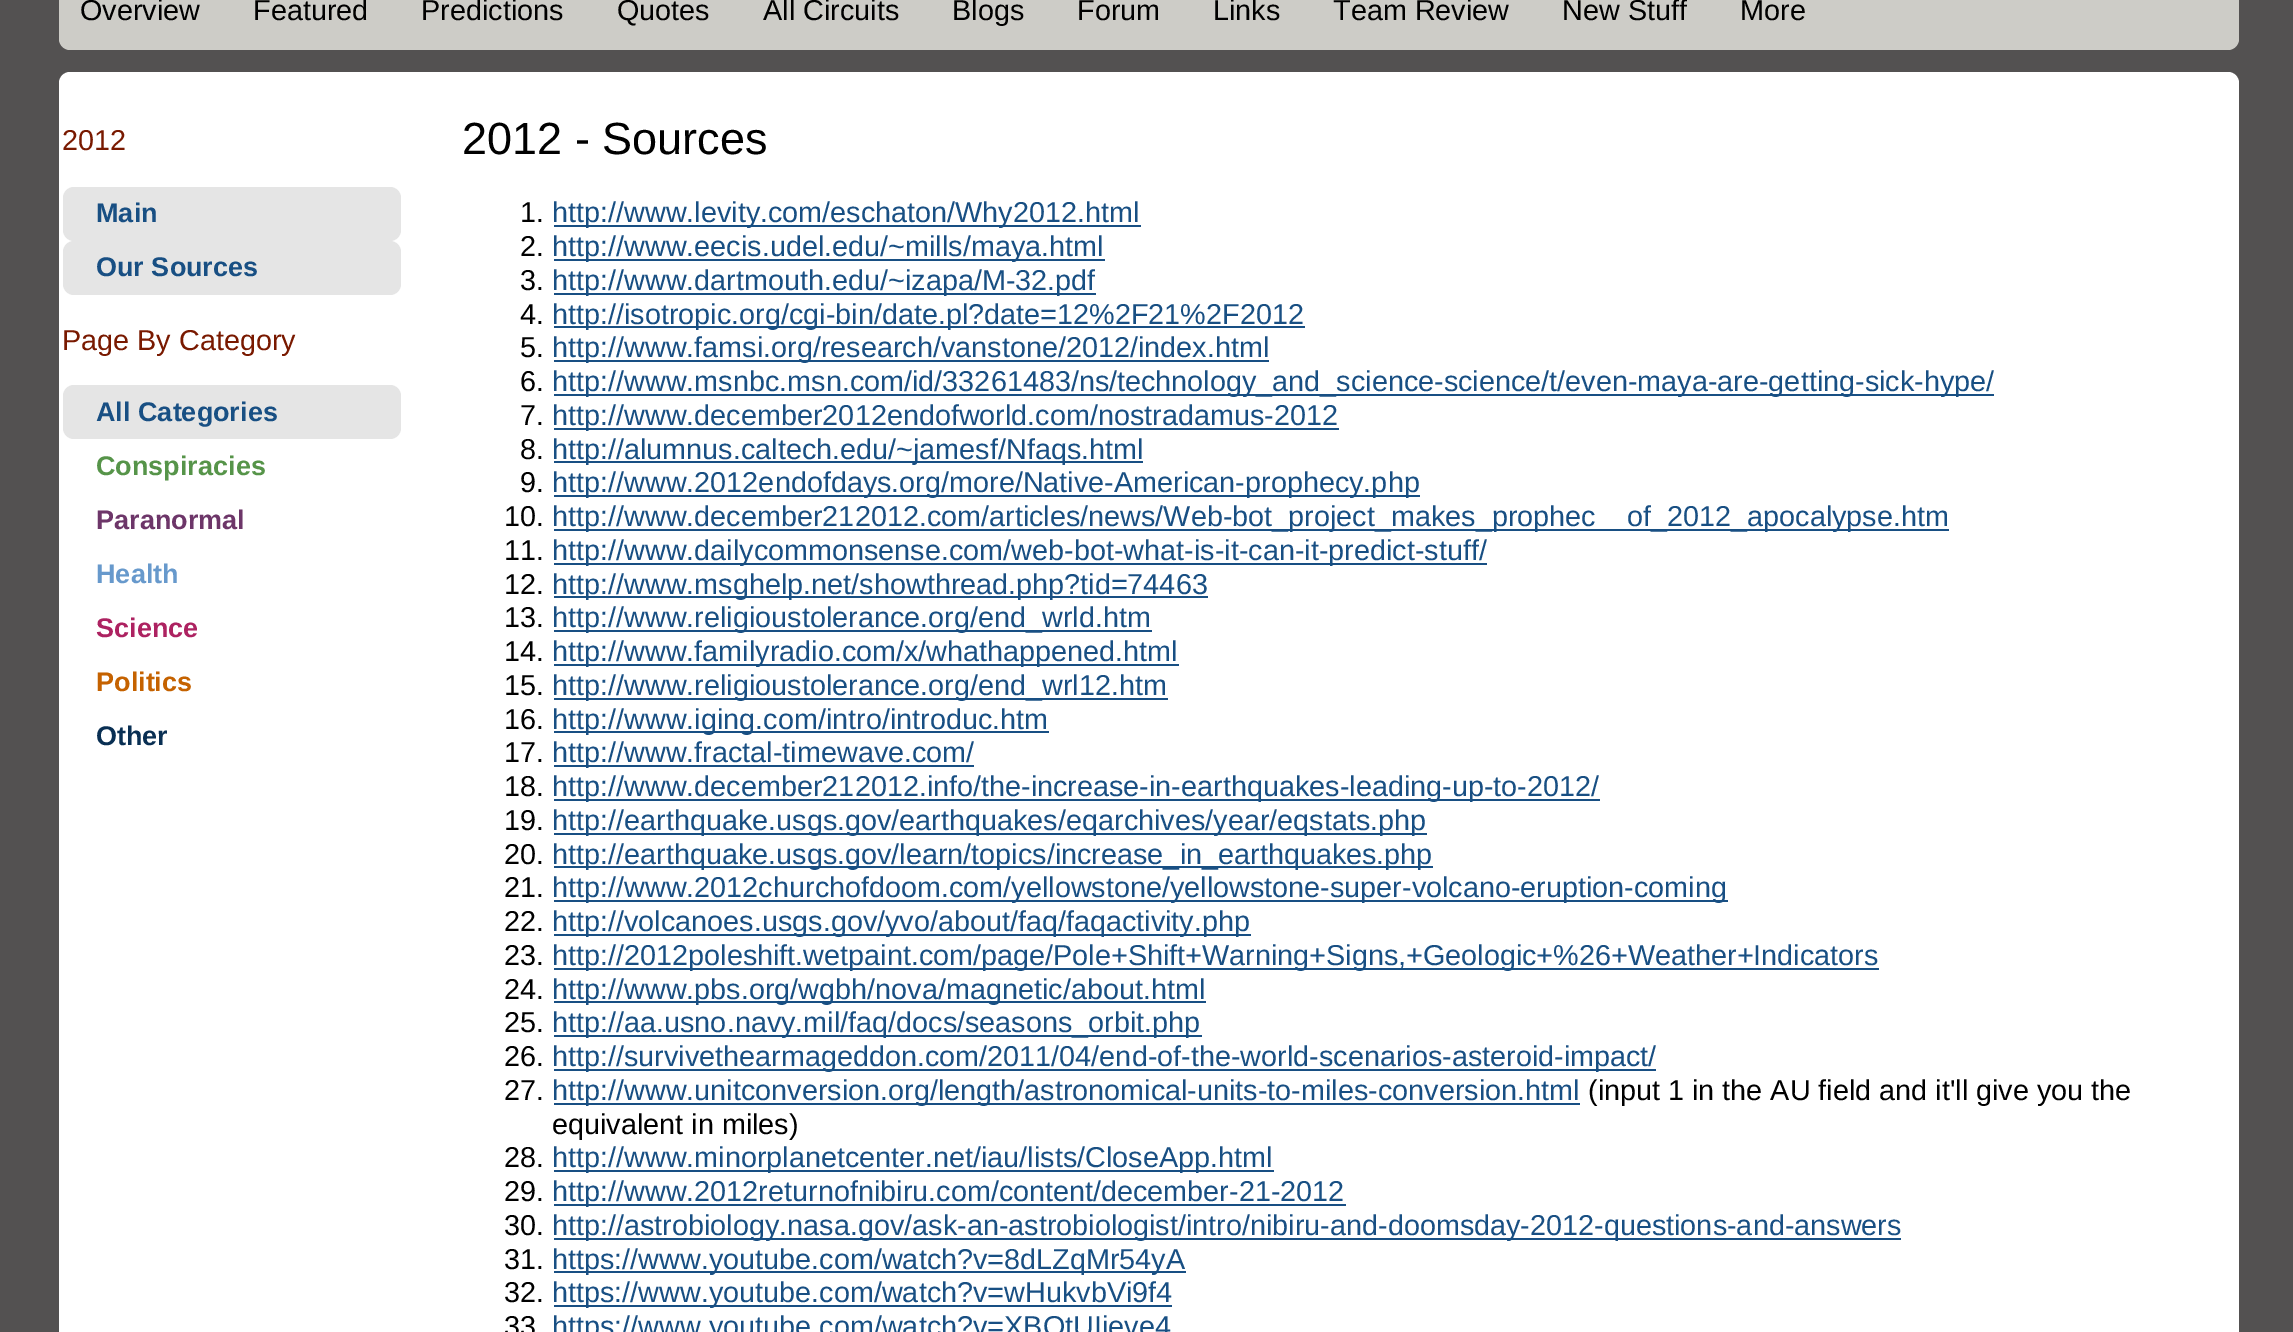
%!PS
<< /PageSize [2293 1332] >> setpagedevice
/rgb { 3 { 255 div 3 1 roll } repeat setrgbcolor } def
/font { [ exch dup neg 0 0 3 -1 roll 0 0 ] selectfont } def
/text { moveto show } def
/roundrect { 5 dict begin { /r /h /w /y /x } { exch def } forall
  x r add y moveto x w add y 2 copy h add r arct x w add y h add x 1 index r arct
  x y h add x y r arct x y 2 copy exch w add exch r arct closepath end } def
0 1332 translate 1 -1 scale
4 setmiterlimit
83 81 81 rgb
0 0 2293 1332 rectfill
205 204 199 rgb
59 -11 moveto 2180 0 rlineto 0 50 rlineto 0 6 -5 11 -11 11 rcurveto -2158 0 rlineto -6 0 -11 -5 -11 -11 rcurveto closepath fill
255 255 255 rgb
59 72 2180 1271 11 roundrect fill
229 229 229 rgb
63 187 338 54 11 roundrect fill
63 241 338 54 11 roundrect fill
63 385 338 54 11 roundrect fill
24 79 131 rgb
554 225 587 2 rectfill
554 259 551 2 rectfill
554 293 542 2 rectfill
554 326 751 2 rectfill
554 360 715 2 rectfill
554 394 1440 2 rectfill
554 428 785 2 rectfill
554 461 589 2 rectfill
554 495 866 2 rectfill
554 529 1395 2 rectfill
554 563 933 2 rectfill
554 596 654 2 rectfill
554 630 598 2 rectfill
554 664 625 2 rectfill
554 698 614 2 rectfill
554 731 495 2 rectfill
554 765 420 2 rectfill
554 799 1046 2 rectfill
554 833 873 2 rectfill
554 866 879 2 rectfill
554 900 1174 2 rectfill
554 934 697 2 rectfill
554 968 1325 2 rectfill
554 1001 652 2 rectfill
554 1035 648 2 rectfill
554 1069 1102 2 rectfill
554 1103 1026 2 rectfill
554 1170 720 2 rectfill
554 1204 792 2 rectfill
554 1238 1347 2 rectfill
554 1271 632 2 rectfill
554 1305 618 2 rectfill
/LiberationSans-Regular 28.8 font
0 0 0 rgb
(Overview) 80 20 text
(Featured) 253 20 text
(Predictions) 421 20 text
(Quotes) 617 20 text
(All Circuits) 763 20 text
(Blogs) 952 20 text
(Forum) 1077 20 text
(Links) 1213 20 text
(Team Review) 1333 20 text
(New Stuff) 1562 20 text
(More) 1740 20 text
121 25 0 rgb
(2012) 62 150 text
/LiberationSans-Bold 27 font
24 79 131 rgb
(Main) 96 222 text
(Our Sources) 96 276 text
/LiberationSans-Regular 28.8 font
121 25 0 rgb
(Page By Category) 62 350 text
/LiberationSans-Bold 27 font
24 79 131 rgb
(All Categories) 96 421 text
86 148 73 rgb
(Conspiracies) 96 475 text
109 54 105 rgb
(Paranormal) 96 529 text
103 153 204 rgb
(Health) 96 583 text
173 34 97 rgb
(Science) 96 637 text
197 98 0 rgb
(Politics) 96 691 text
9 47 83 rgb
(Other) 96 745 text
/LiberationSans-Regular 45 font
0 0 0 rgb
(2012 - Sources) 462 154 text
/LiberationSans-Regular 28.8 font
(1.) 520 222 text
24 79 131 rgb
(http://www.levity.com/eschaton/Why2012.html) 552 222 text
0 0 0 rgb
(2.) 520 256 text
24 79 131 rgb
(http://www.eecis.udel.edu/~mills/maya.html) 552 256 text
0 0 0 rgb
(3.) 520 290 text
24 79 131 rgb
(http://www.dartmouth.edu/~izapa/M-32.pdf) 552 290 text
0 0 0 rgb
(4.) 520 324 text
24 79 131 rgb
(http://isotropic.org/cgi-bin/date.pl?date=12%2F21%2F2012) 552 324 text
0 0 0 rgb
(5.) 520 357 text
24 79 131 rgb
(http://www.famsi.org/research/vanstone/2012/index.html) 552 357 text
0 0 0 rgb
(6.) 520 391 text
24 79 131 rgb
(http://www.msnbc.msn.com/id/33261483/ns/technology_and_science-science/t/even-maya-are-getting-sick-hype/) 552 391 text
0 0 0 rgb
(7.) 520 425 text
24 79 131 rgb
(http://www.december2012endofworld.com/nostradamus-2012) 552 425 text
0 0 0 rgb
(8.) 520 459 text
24 79 131 rgb
(http://alumnus.caltech.edu/~jamesf/Nfaqs.html) 552 459 text
0 0 0 rgb
(9.) 520 492 text
24 79 131 rgb
(http://www.2012endofdays.org/more/Native-American-prophecy.php) 552 492 text
0 0 0 rgb
(10.) 504 526 text
24 79 131 rgb
(http://www.december212012.com/articles/news/Web-bot_project_makes_prophec) 552 526 text
(of_2012_apocalypse.htm) 1627 526 text
0 0 0 rgb
(11.) 504 560 text
24 79 131 rgb
(http://www.dailycommonsense.com/web-bot-what-is-it-can-it-predict-stuff/) 552 560 text
0 0 0 rgb
(12.) 504 594 text
24 79 131 rgb
(http://www.msghelp.net/showthread.php?tid=74463) 552 594 text
0 0 0 rgb
(13.) 504 627 text
24 79 131 rgb
(http://www.religioustolerance.org/end_wrld.htm) 552 627 text
0 0 0 rgb
(14.) 504 661 text
24 79 131 rgb
(http://www.familyradio.com/x/whathappened.html) 552 661 text
0 0 0 rgb
(15.) 504 695 text
24 79 131 rgb
(http://www.religioustolerance.org/end_wrl12.htm) 552 695 text
0 0 0 rgb
(16.) 504 729 text
24 79 131 rgb
(http://www.iging.com/intro/introduc.htm) 552 729 text
0 0 0 rgb
(17.) 504 762 text
24 79 131 rgb
(http://www.fractal-timewave.com/) 552 762 text
0 0 0 rgb
(18.) 504 796 text
24 79 131 rgb
(http://www.december212012.info/the-increase-in-earthquakes-leading-up-to-2012/) 552 796 text
0 0 0 rgb
(19.) 504 830 text
24 79 131 rgb
(http://earthquake.usgs.gov/earthquakes/eqarchives/year/eqstats.php) 552 830 text
0 0 0 rgb
(20.) 504 864 text
24 79 131 rgb
(http://earthquake.usgs.gov/learn/topics/increase_in_earthquakes.php) 552 864 text
0 0 0 rgb
(21.) 504 897 text
24 79 131 rgb
(http://www.2012churchofdoom.com/yellowstone/yellowstone-super-volcano-eruption-coming) 552 897 text
0 0 0 rgb
(22.) 504 931 text
24 79 131 rgb
(http://volcanoes.usgs.gov/yvo/about/faq/faqactivity.php) 552 931 text
0 0 0 rgb
(23.) 504 965 text
24 79 131 rgb
(http://2012poleshift.wetpaint.com/page/Pole+Shift+Warning+Signs,+Geologic+%26+Weather+Indicators) 552 965 text
0 0 0 rgb
(24.) 504 999 text
24 79 131 rgb
(http://www.pbs.org/wgbh/nova/magnetic/about.html) 552 999 text
0 0 0 rgb
(25.) 504 1032 text
24 79 131 rgb
(http://aa.usno.navy.mil/faq/docs/seasons_orbit.php) 552 1032 text
0 0 0 rgb
(26.) 504 1066 text
24 79 131 rgb
(http://survivethearmageddon.com/2011/04/end-of-the-world-scenarios-asteroid-impact/) 552 1066 text
0 0 0 rgb
(27.) 504 1100 text
24 79 131 rgb
(http://www.unitconversion.org/length/astronomical-units-to-miles-conversion.html) 552 1100 text
0 0 0 rgb
(\(input 1 in the AU field and it'll give you the) 1588 1100 text
(equivalent in miles\)) 552 1134 text
(28.) 504 1167 text
24 79 131 rgb
(http://www.minorplanetcenter.net/iau/lists/CloseApp.html) 552 1167 text
0 0 0 rgb
(29.) 504 1201 text
24 79 131 rgb
(http://www.2012returnofnibiru.com/content/december-21-2012) 552 1201 text
0 0 0 rgb
(30.) 504 1235 text
24 79 131 rgb
(http://astrobiology.nasa.gov/ask-an-astrobiologist/intro/nibiru-and-doomsday-2012-questions-and-answers) 552 1235 text
0 0 0 rgb
(31.) 504 1269 text
24 79 131 rgb
(https://www.youtube.com/watch?v=8dLZqMr54yA) 552 1269 text
0 0 0 rgb
(32.) 504 1302 text
24 79 131 rgb
(https://www.youtube.com/watch?v=wHukvbVi9f4) 552 1302 text
0 0 0 rgb
(33) 504 1336 text
24 79 131 rgb
(https://www.youtube.com/watch?v=XBQtUIjeve4) 552 1336 text
showpage
